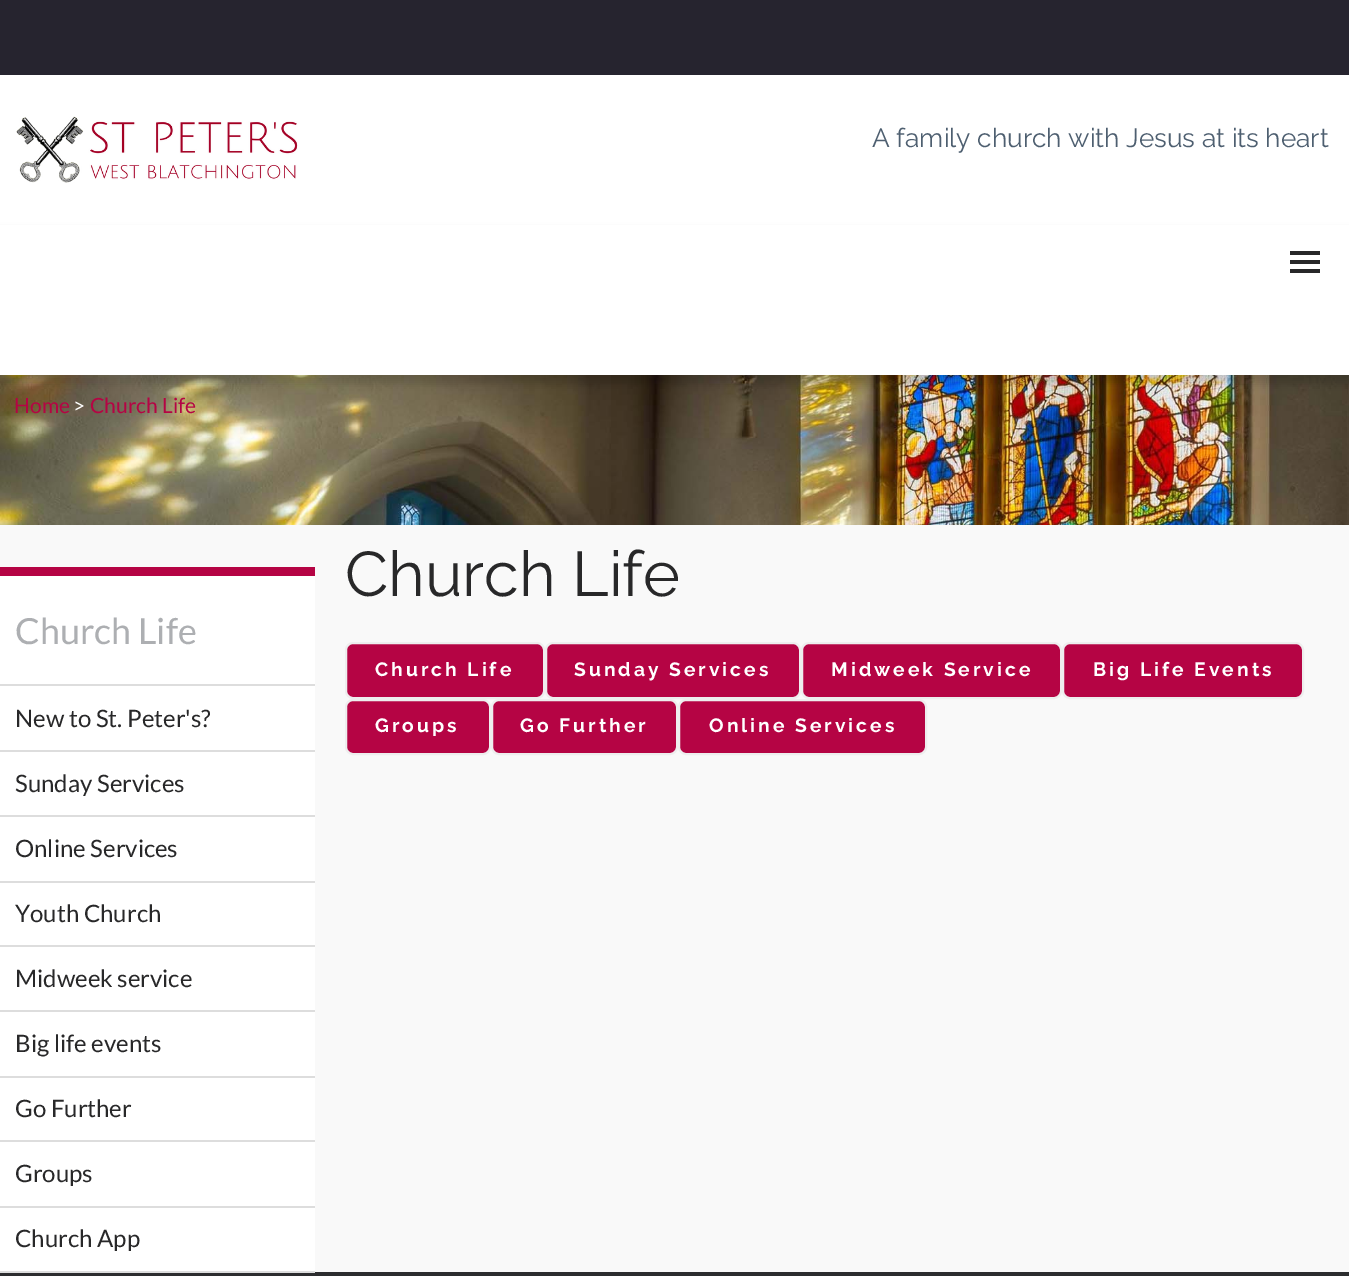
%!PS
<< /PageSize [1349 1276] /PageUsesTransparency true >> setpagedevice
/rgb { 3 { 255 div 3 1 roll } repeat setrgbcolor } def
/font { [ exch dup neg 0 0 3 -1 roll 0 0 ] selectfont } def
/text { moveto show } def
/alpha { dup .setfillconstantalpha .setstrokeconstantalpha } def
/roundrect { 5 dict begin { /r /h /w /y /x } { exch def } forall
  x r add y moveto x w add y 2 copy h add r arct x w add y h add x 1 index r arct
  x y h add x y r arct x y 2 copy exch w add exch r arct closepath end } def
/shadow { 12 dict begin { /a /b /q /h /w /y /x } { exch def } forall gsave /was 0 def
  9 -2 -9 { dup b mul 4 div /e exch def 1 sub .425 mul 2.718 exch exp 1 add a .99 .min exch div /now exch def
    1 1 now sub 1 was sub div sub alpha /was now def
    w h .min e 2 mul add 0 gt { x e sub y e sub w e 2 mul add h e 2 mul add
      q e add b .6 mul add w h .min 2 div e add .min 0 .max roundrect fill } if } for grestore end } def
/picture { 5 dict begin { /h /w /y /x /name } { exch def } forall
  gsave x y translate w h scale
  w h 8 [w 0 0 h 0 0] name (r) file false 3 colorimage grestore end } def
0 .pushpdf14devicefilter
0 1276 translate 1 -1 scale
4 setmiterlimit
44 45 47 rgb
0 0 1349 1276 rectfill
38 36 47 rgb
0 0 1349 75 rectfill
255 255 255 rgb
0 75 1349 150 rectfill
(img_01.rgb) 16 116 282 67 picture
(img_02.rgb) 0 375 1349 150 picture
0 0 0 rgb
-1 231 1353 153 0 4 0.15 shadow
255 255 255 rgb
0 225 1349 150 rectfill
40 40 41 rgb
1290 251 30 4 rectfill
1290 260 30 4 rectfill
1290 269 30 4 rectfill
249 249 249 rgb
0 525 1349 747 rectfill
255 255 255 rgb
0 576 315 695 rectfill
181 4 68 rgb
0 567 315 9 rectfill
221 221 221 rgb
0 684 315 2 rectfill
0 750 315 2 rectfill
0 815 315 2 rectfill
0 881 315 2 rectfill
0 945 315 2 rectfill
0 1010 315 2 rectfill
0 1076 315 2 rectfill
0 1140 315 2 rectfill
0 1206 315 2 rectfill
0 1271 315 2 rectfill
181 4 68 rgb
346 643 198 55 7 roundrect gsave fill grestore
238 238 238 rgb
2 setlinewidth
stroke
181 4 68 rgb
546 643 254 55 7 roundrect gsave fill grestore
238 238 238 rgb
stroke
181 4 68 rgb
802 643 259 55 7 roundrect gsave fill grestore
238 238 238 rgb
stroke
181 4 68 rgb
1063 643 240 55 7 roundrect gsave fill grestore
238 238 238 rgb
stroke
181 4 68 rgb
346 700 144 54 7 roundrect gsave fill grestore
238 238 238 rgb
stroke
181 4 68 rgb
492 700 185 54 7 roundrect gsave fill grestore
238 238 238 rgb
stroke
181 4 68 rgb
679 700 247 54 7 roundrect gsave fill grestore
238 238 238 rgb
stroke
/Raleway-Regular 26.25 font
78 95 112 rgb
(A family church with Jesus at its heart) 872 147 text
/Lato-Regular 21 font
181 4 68 rgb
(Home) 14 413 text
255 255 255 rgb
(>) 73 413 text
181 4 68 rgb
(Church Life) 90 413 text
/Lato-Regular 36 font
173 175 178 rgb
(Church Life) 15 644 text
/Lato-Regular 24 font
40 40 41 rgb
(New to St. Peter's?) 15 727 text
(Sunday Services) 15 792 text
(Online Services) 15 857 text
(Youth Church) 15 922 text
(Midweek service) 15 987 text
(Big life events) 15 1052 text
(Go Further) 15 1117 text
(Groups) 15 1182 text
(Church App) 15 1247 text
/Raleway-Regular 63 font
(Church Life) 345 596 text
/Raleway-Bold 19.25 font
255 255 255 rgb
375 676 moveto 3 0 (Church Life) ashow
574 676 moveto 3 0 (Sunday Services) ashow
831 676 moveto 3 0 (Midweek Service) ashow
1093 676 moveto 3 0 (Big Life Events) ashow
375 732 moveto 3 0 (Groups) ashow
520 732 moveto 3 0 (Go Further) ashow
709 732 moveto 3 0 (Online Services) ashow
.poppdf14devicefilter showpage
